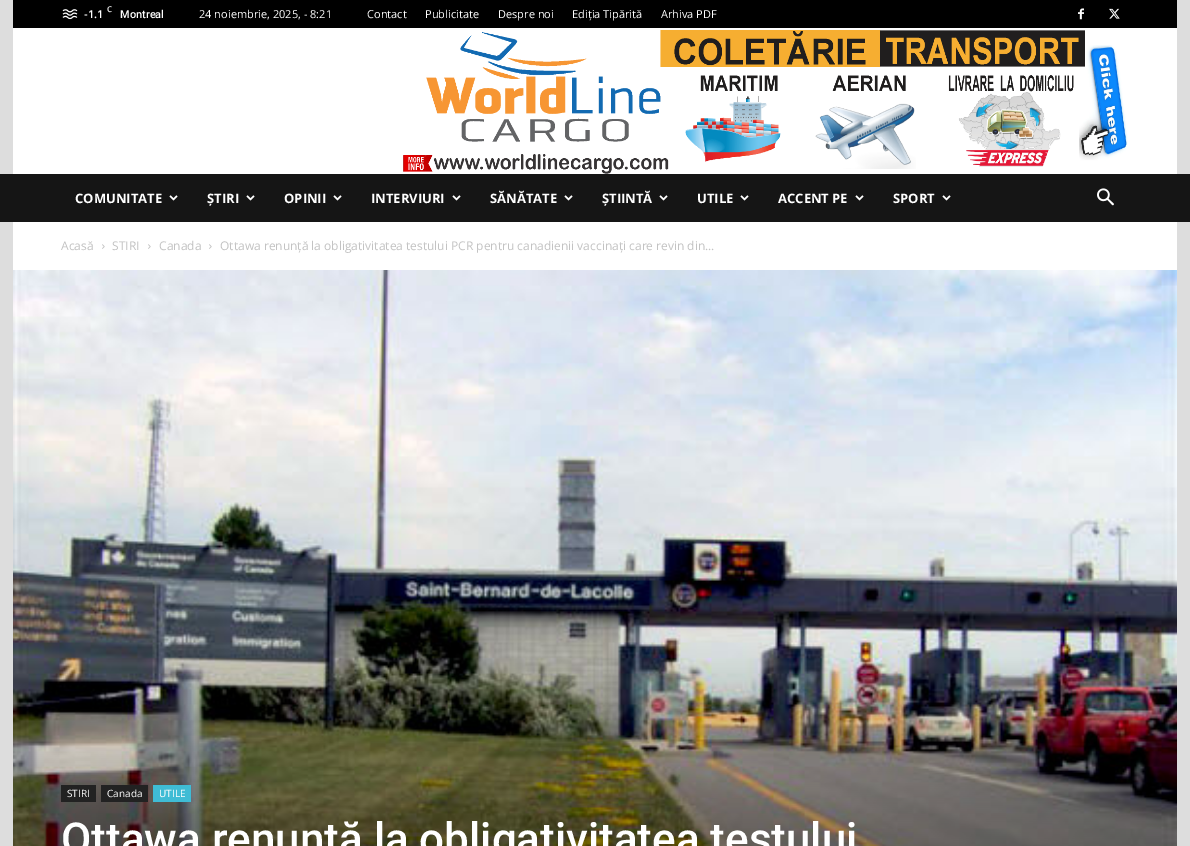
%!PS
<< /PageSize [1190 846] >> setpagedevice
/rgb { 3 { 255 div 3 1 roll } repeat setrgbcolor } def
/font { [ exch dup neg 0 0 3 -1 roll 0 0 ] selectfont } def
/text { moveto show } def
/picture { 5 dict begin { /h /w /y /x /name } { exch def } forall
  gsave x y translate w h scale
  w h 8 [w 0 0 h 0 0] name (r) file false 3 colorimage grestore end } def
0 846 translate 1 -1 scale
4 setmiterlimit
221 221 221 rgb
0 0 1190 846 rectfill
0 0 0 rgb
13 0 1164 28 rectfill
(img_01.rgb) 62 9 16 11 picture
(img_02.rgb) 1078 8 6 12 picture
(img_03.rgb) 1109 8 11 11 picture
255 255 255 rgb
13 28 1164 146 rectfill
(img_04.rgb) 401 30 728 144 picture
21 21 21 rgb
0 174 1190 48 rectfill
(img_05.rgb) 169 195 9 6 picture
(img_05.rgb) 246 195 9 6 picture
(img_05.rgb) 333 195 9 6 picture
(img_05.rgb) 452 195 9 6 picture
(img_05.rgb) 564 195 9 6 picture
(img_05.rgb) 659 195 9 6 picture
(img_05.rgb) 740 195 9 6 picture
(img_05.rgb) 855 195 9 6 picture
(img_05.rgb) 942 195 9 6 picture
(img_06.rgb) 1097 188 17 18 picture
255 255 255 rgb
13 222 1164 48 rectfill
(img_07.rgb) 102 244 3 5 picture
(img_07.rgb) 148 244 3 5 picture
(img_07.rgb) 209 244 3 5 picture
(img_08.rgb) 13 270 1164 576 picture
34 34 34 rgb
61 785 35 17 rectfill
101 785 47 17 rectfill
63 188 213 rgb
153 785 38 17 rectfill
/OpenSans-SemiBold 11 font
255 255 255 rgb
(-1.1) 84 18 text
/OpenSans-SemiBold 8 font
(C) 107 12 text
/Roboto-Medium 11 font
(Montreal) 120 18 text
/OpenSans-Regular 11 font
(24 noiembrie, 2025, - 8:21) 199 18 text
(Contact) 367 18 text
(Publicitate) 425 18 text
(Despre noi) 498 18 text
(Ediția Tipărită) 572 18 text
(Arhiva PDF) 661 18 text
/OpenSans-Bold 13 font
(COMUNITATE) 75 203 text
(ȘTIRI) 207 203 text
(OPINII) 284 203 text
(INTERVIURI) 371 203 text
(SĂNĂTATE) 490 203 text
(ȘTIINTĂ) 602 203 text
(UTILE) 697 203 text
(ACCENT PE) 778 203 text
(SPORT) 893 203 text
/OpenSans-Regular 12 font
195 195 195 rgb
(Acasă) 61 250 text
(STIRI) 112 250 text
(Canada) 159 250 text
(Ottawa renunță la obligativitatea testului PCR pentru canadienii vaccinați care revin din...) 220 250 text
/OpenSans-Regular 10 font
255 255 255 rgb
(STIRI) 67 797 text
(Canada) 107 797 text
(UTILE) 159 797 text
/Roboto-Medium 44 font
(Ottawa renunță la obligativitatea testului) 61 854 text
showpage
